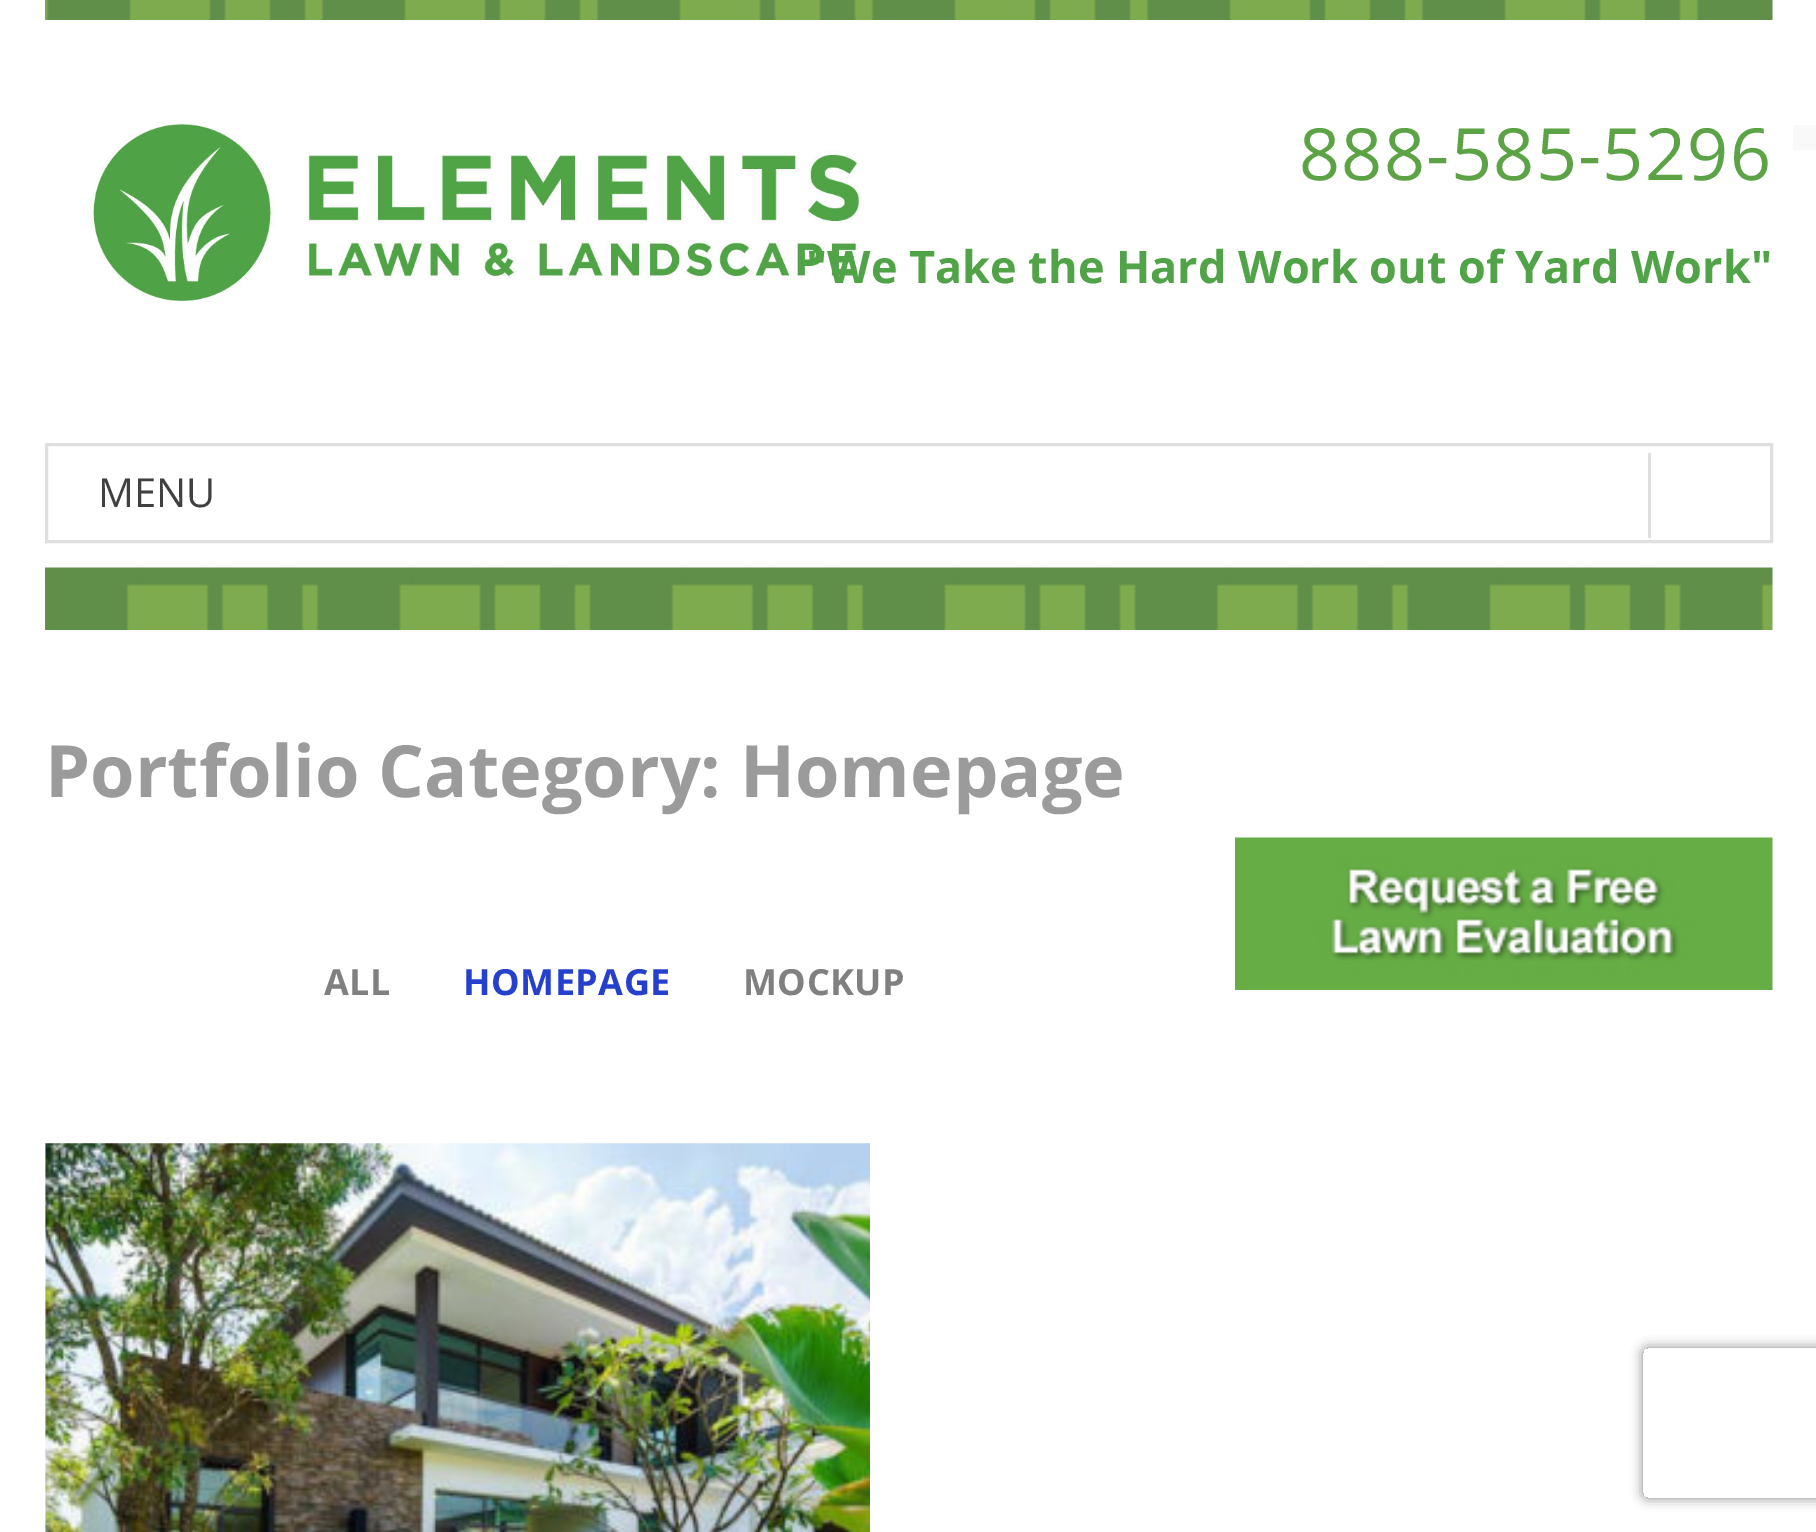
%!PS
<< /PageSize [1816 1532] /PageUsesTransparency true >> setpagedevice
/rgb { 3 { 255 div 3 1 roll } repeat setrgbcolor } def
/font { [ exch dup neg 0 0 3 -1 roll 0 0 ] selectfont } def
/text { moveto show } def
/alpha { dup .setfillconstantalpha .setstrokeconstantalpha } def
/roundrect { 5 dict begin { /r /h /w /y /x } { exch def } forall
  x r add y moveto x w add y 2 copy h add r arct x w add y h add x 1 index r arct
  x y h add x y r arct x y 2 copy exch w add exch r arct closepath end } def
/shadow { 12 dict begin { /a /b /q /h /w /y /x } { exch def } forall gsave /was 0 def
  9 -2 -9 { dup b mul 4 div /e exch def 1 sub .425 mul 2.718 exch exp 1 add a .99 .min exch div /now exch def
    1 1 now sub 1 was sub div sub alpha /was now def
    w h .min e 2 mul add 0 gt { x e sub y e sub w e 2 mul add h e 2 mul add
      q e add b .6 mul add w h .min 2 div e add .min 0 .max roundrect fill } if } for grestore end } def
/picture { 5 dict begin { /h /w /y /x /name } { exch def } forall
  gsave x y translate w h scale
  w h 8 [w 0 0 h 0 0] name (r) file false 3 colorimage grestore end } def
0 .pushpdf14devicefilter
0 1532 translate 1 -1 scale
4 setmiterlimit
255 255 255 rgb
0 0 1816 1532 rectfill
(img_01.rgb) 45 0 1728 20 picture
(img_02.rgb) 90 122 774 180 picture
223 223 223 rgb
3 setlinewidth
46.5 444.5 1725 97 rectstroke
1648 453 3 85 rectfill
(img_03.rgb) 45 567 1728 63 picture
(img_04.rgb) 1235 837 538 153 picture
(img_05.rgb) 45 1143 825 389 picture
249 249 249 rgb
1793 125 23 25 rectfill
gsave
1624 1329 moveto 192 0 rlineto 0 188 rlineto -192 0 rlineto closepath 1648 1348 moveto 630 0 rlineto 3 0 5 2 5 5 rcurveto 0 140 rlineto 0 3 -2 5 -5 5 rcurveto -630 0 rlineto -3 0 -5 -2 -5 -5 rcurveto 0 -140 rlineto 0 -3 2 -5 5 -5 rcurveto closepath eoclip newpath
128 128 128 rgb
1643 1348 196 150 5 6 1 shadow
grestore
/OpenSans-Regular 72 font
91 163 69 rgb
1299 180 moveto 1.25 0 (888-585-5296) ashow
/OpenSans-Bold 45 font
80 163 70 rgb
("We Take the Hard Work out of Yard Work") 806 283 text
/OpenSans-Regular 40 font
64 64 64 rgb
(MENU) 98 507 text
/OpenSans-Bold 72 font
156 155 156 rgb
(Portfolio Category: Homepage) 45 797 text
/OpenSans-Bold 36 font
128 128 128 rgb
324 995 moveto 0.5 0 (ALL) ashow
37 64 204 rgb
463 995 moveto 0.5 0 (HOMEPAGE) ashow
128 128 128 rgb
743 995 moveto 0.5 0 (MOCKUP) ashow
.poppdf14devicefilter showpage
